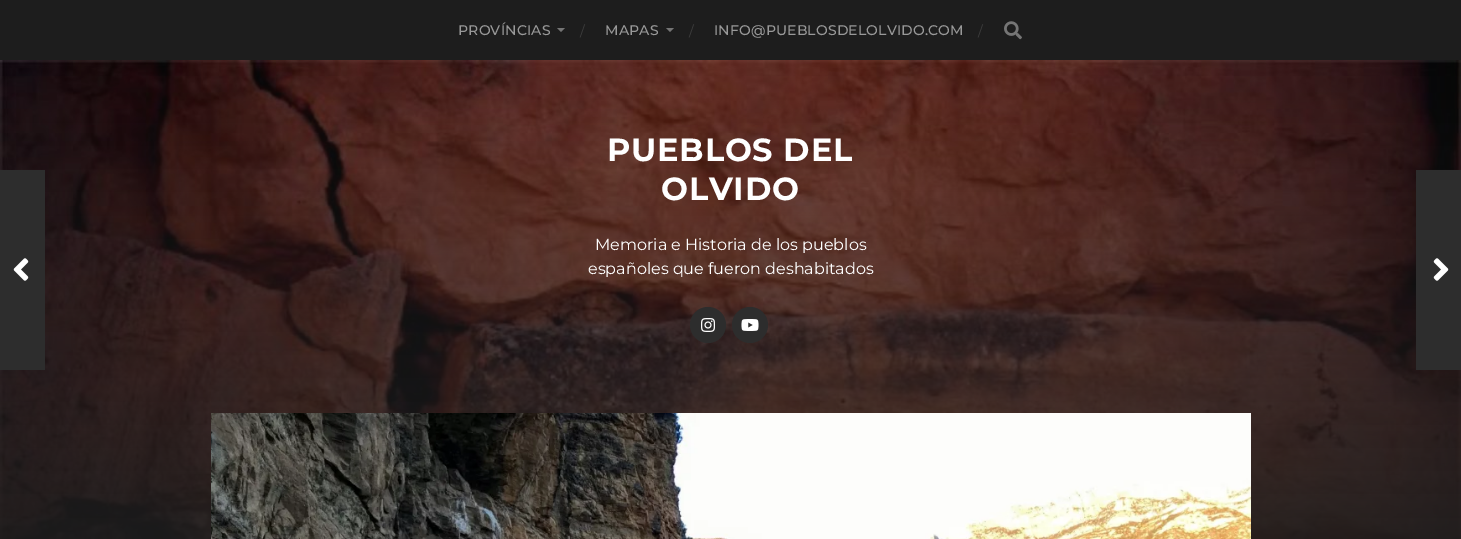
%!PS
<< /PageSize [1461 539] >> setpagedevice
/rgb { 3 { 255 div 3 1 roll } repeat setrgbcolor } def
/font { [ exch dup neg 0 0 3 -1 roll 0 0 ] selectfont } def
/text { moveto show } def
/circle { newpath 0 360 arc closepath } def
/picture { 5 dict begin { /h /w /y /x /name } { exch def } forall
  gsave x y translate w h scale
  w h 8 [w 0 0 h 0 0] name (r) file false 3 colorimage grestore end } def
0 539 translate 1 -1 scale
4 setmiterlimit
29 29 29 rgb
0 0 1461 539 rectfill
117 117 117 rgb
557 28 moveto 8 0 rlineto -4 4 rlineto closepath fill
666 28 moveto 8 0 rlineto -4 4 rlineto closepath fill
(img_01.rgb) 1004 21 18 19 picture
(img_02.rgb) 0 60 1461 479 picture
45 45 45 rgb
708 325 18 circle fill
(img_03.rgb) 701 318 14 14 picture
750 325 18 circle fill
(img_04.rgb) 741 319 18 12 picture
0 170 45 200 rectfill
(img_05.rgb) 13 258 16 23 picture
1416 170 45 200 rectfill
(img_06.rgb) 1433 258 16 23 picture
(img_07.rgb) 211 413 1040 126 picture
/Montserrat-Medium 14 font
153 153 153 rgb
458 35 moveto 0.15 0 (PROVÍNCIAS) ashow
/Montserrat-Regular 14 font
61 61 61 rgb
(/) 580 36 text
/Montserrat-Medium 14 font
153 153 153 rgb
605 35 moveto 0.15 0 (MAPAS) ashow
/Montserrat-Regular 14 font
61 61 61 rgb
(/) 689 36 text
/Montserrat-Medium 14 font
153 153 153 rgb
714 35 moveto 0.15 0 (INFO@PUEBLOSDELOLVIDO.COM) ashow
/Montserrat-Regular 14 font
61 61 61 rgb
(/) 978 36 text
/Montserrat-Bold 32 font
255 255 255 rgb
607 161 moveto 0.75 0 (PUEBLOS DEL) ashow
661 200 moveto 0.75 0 (OLVIDO) ashow
/Montserrat-Regular 16 font
(Memoria e Historia de los pueblos) 595 250 text
(españoles que fueron deshabitados) 588 274 text
showpage
